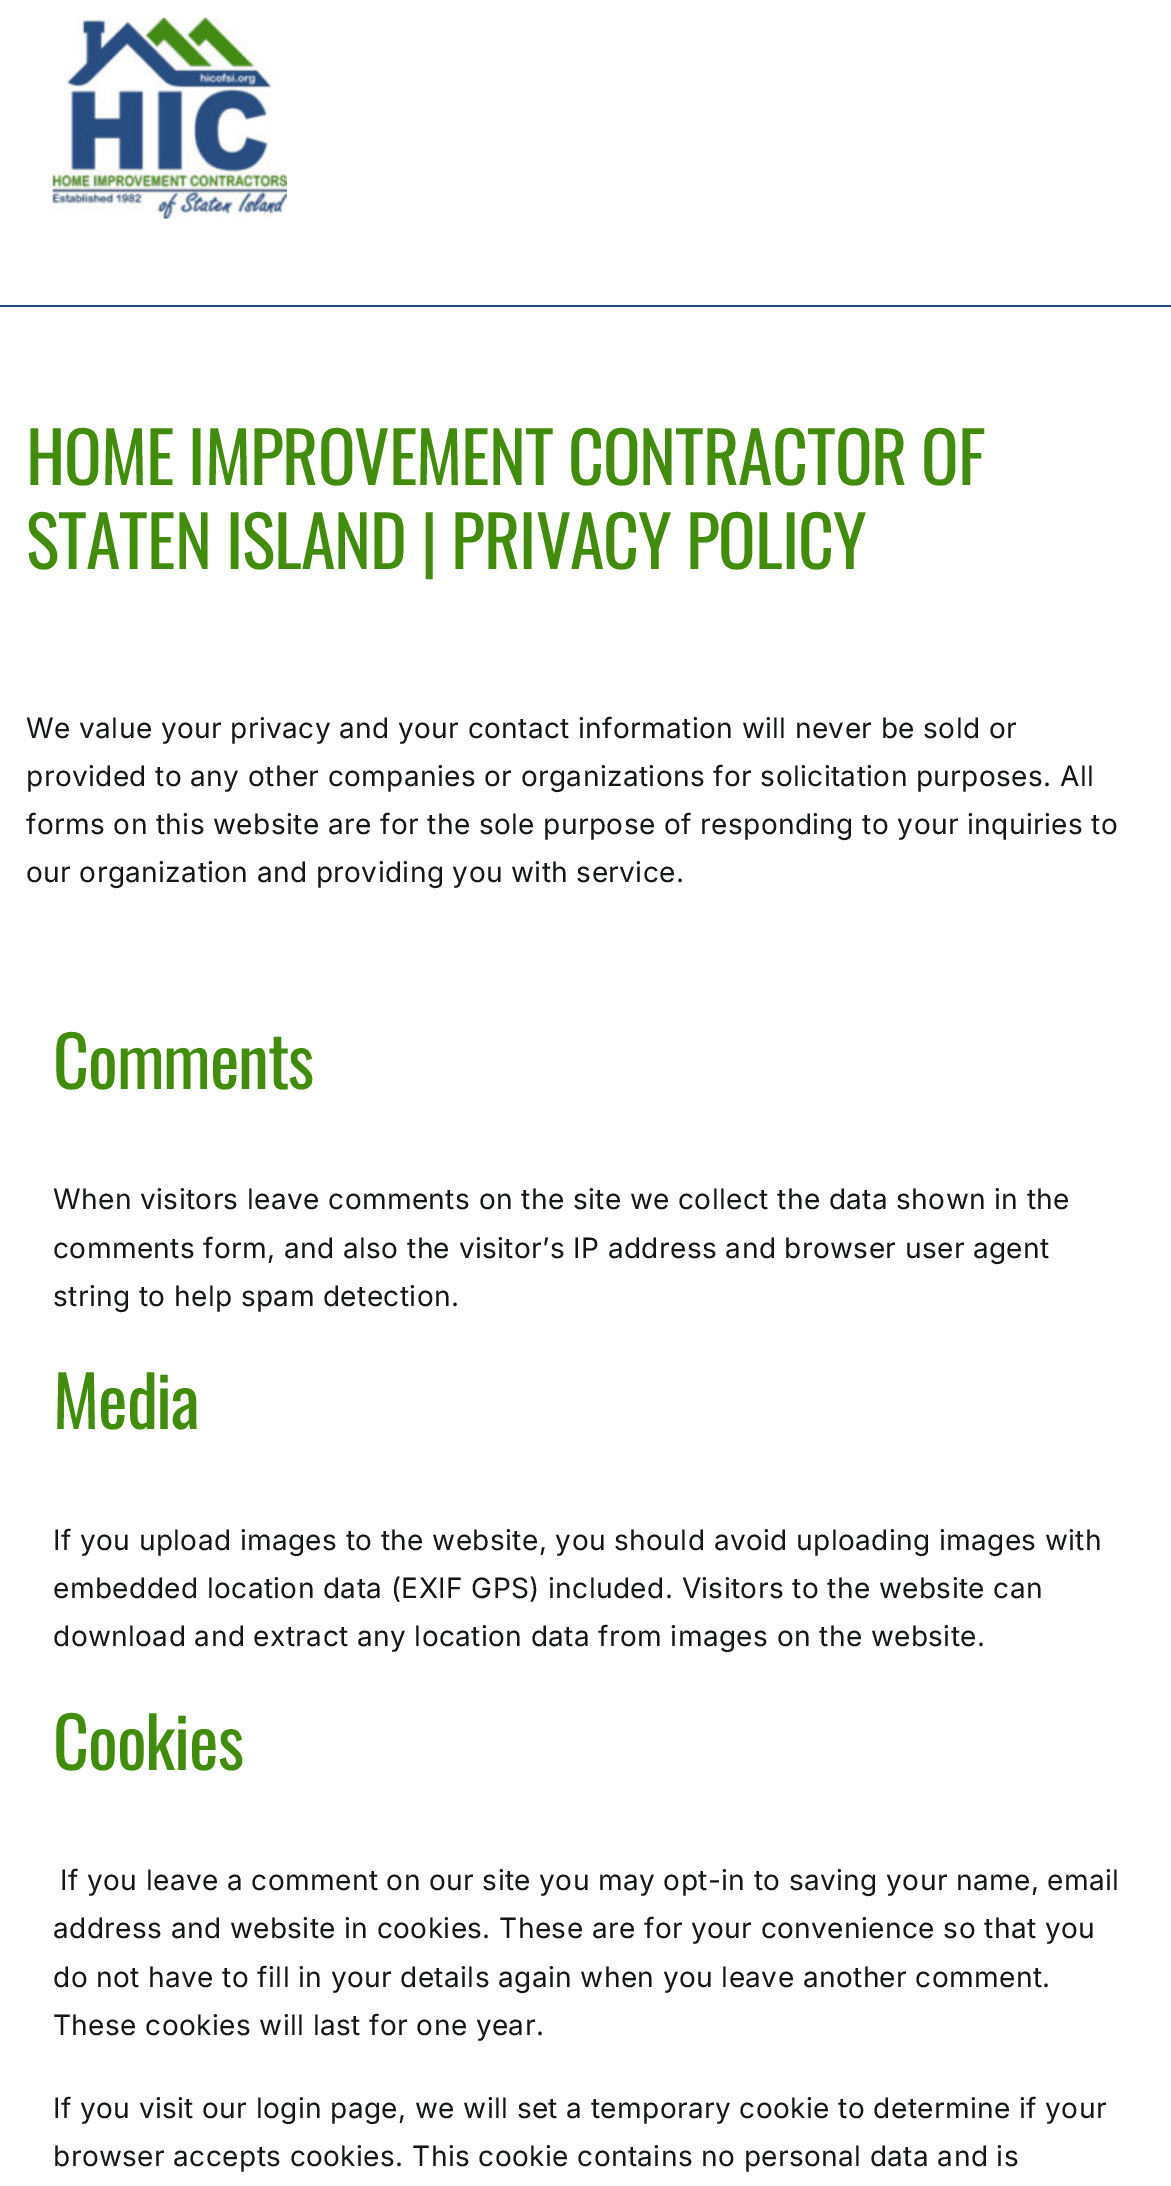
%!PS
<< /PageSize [1171 2186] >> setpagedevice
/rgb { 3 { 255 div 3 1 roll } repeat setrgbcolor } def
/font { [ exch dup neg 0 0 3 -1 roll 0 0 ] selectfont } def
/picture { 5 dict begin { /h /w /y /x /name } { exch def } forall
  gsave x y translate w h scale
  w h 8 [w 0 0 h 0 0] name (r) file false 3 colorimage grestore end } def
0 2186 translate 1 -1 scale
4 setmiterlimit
255 255 255 rgb
0 0 1171 2186 rectfill
(img_01.rgb) 52 17 235 202 picture
35 76 130 rgb
0 305 1171 2 rectfill
/Oswald-Regular 70 font
65 140 13 rgb
26 485 moveto -1.05 0 (HOME IMPROVEMENT CONTRACTOR OF) ashow
26 569 moveto -1.05 0 (STATEN ISLAND | PRIVACY POLICY) ashow
/Inter-Regular 28 font
20 22 23 rgb
26 738 moveto 0.42 0 (We value your privacy and your contact information will never be sold or) ashow
26 786 moveto 0.42 0 (provided to any other companies or organizations for solicitation purposes. All) ashow
26 834 moveto 0.42 0 (forms on this website are for the sole purpose of responding to your inquiries to) ashow
26 882 moveto 0.42 0 (our organization and providing you with service.) ashow
/Oswald-Regular 70 font
65 140 13 rgb
53 1089 moveto -1.05 0 (Comments) ashow
/Inter-Regular 28 font
20 22 23 rgb
53 1209 moveto 0.42 0 (When visitors leave comments on the site we collect the data shown in the) ashow
53 1258 moveto 0.42 0 (comments form, and also the visitor’s IP address and browser user agent) ashow
53 1306 moveto 0.42 0 (string to help spam detection.) ashow
/Oswald-Regular 70 font
65 140 13 rgb
53 1429 moveto -1.05 0 (Media) ashow
/Inter-Regular 28 font
20 22 23 rgb
53 1550 moveto 0.42 0 (If you upload images to the website, you should avoid uploading images with) ashow
53 1598 moveto 0.42 0 (embedded location data \(EXIF GPS\) included. Visitors to the website can) ashow
53 1646 moveto 0.42 0 (download and extract any location data from images on the website.) ashow
/Oswald-Regular 70 font
65 140 13 rgb
53 1770 moveto -1.05 0 (Cookies) ashow
/Inter-Regular 28 font
20 22 23 rgb
60 1890 moveto 0.42 0 (If you leave a comment on our site you may opt-in to saving your name, email) ashow
53 1938 moveto 0.42 0 (address and website in cookies. These are for your convenience so that you) ashow
53 1987 moveto 0.42 0 (do not have to fill in your details again when you leave another comment.) ashow
53 2035 moveto 0.42 0 (These cookies will last for one year.) ashow
53 2118 moveto 0.42 0 (If you visit our login page, we will set a temporary cookie to determine if your) ashow
53 2166 moveto 0.42 0 (browser accepts cookies. This cookie contains no personal data and is) ashow
showpage
